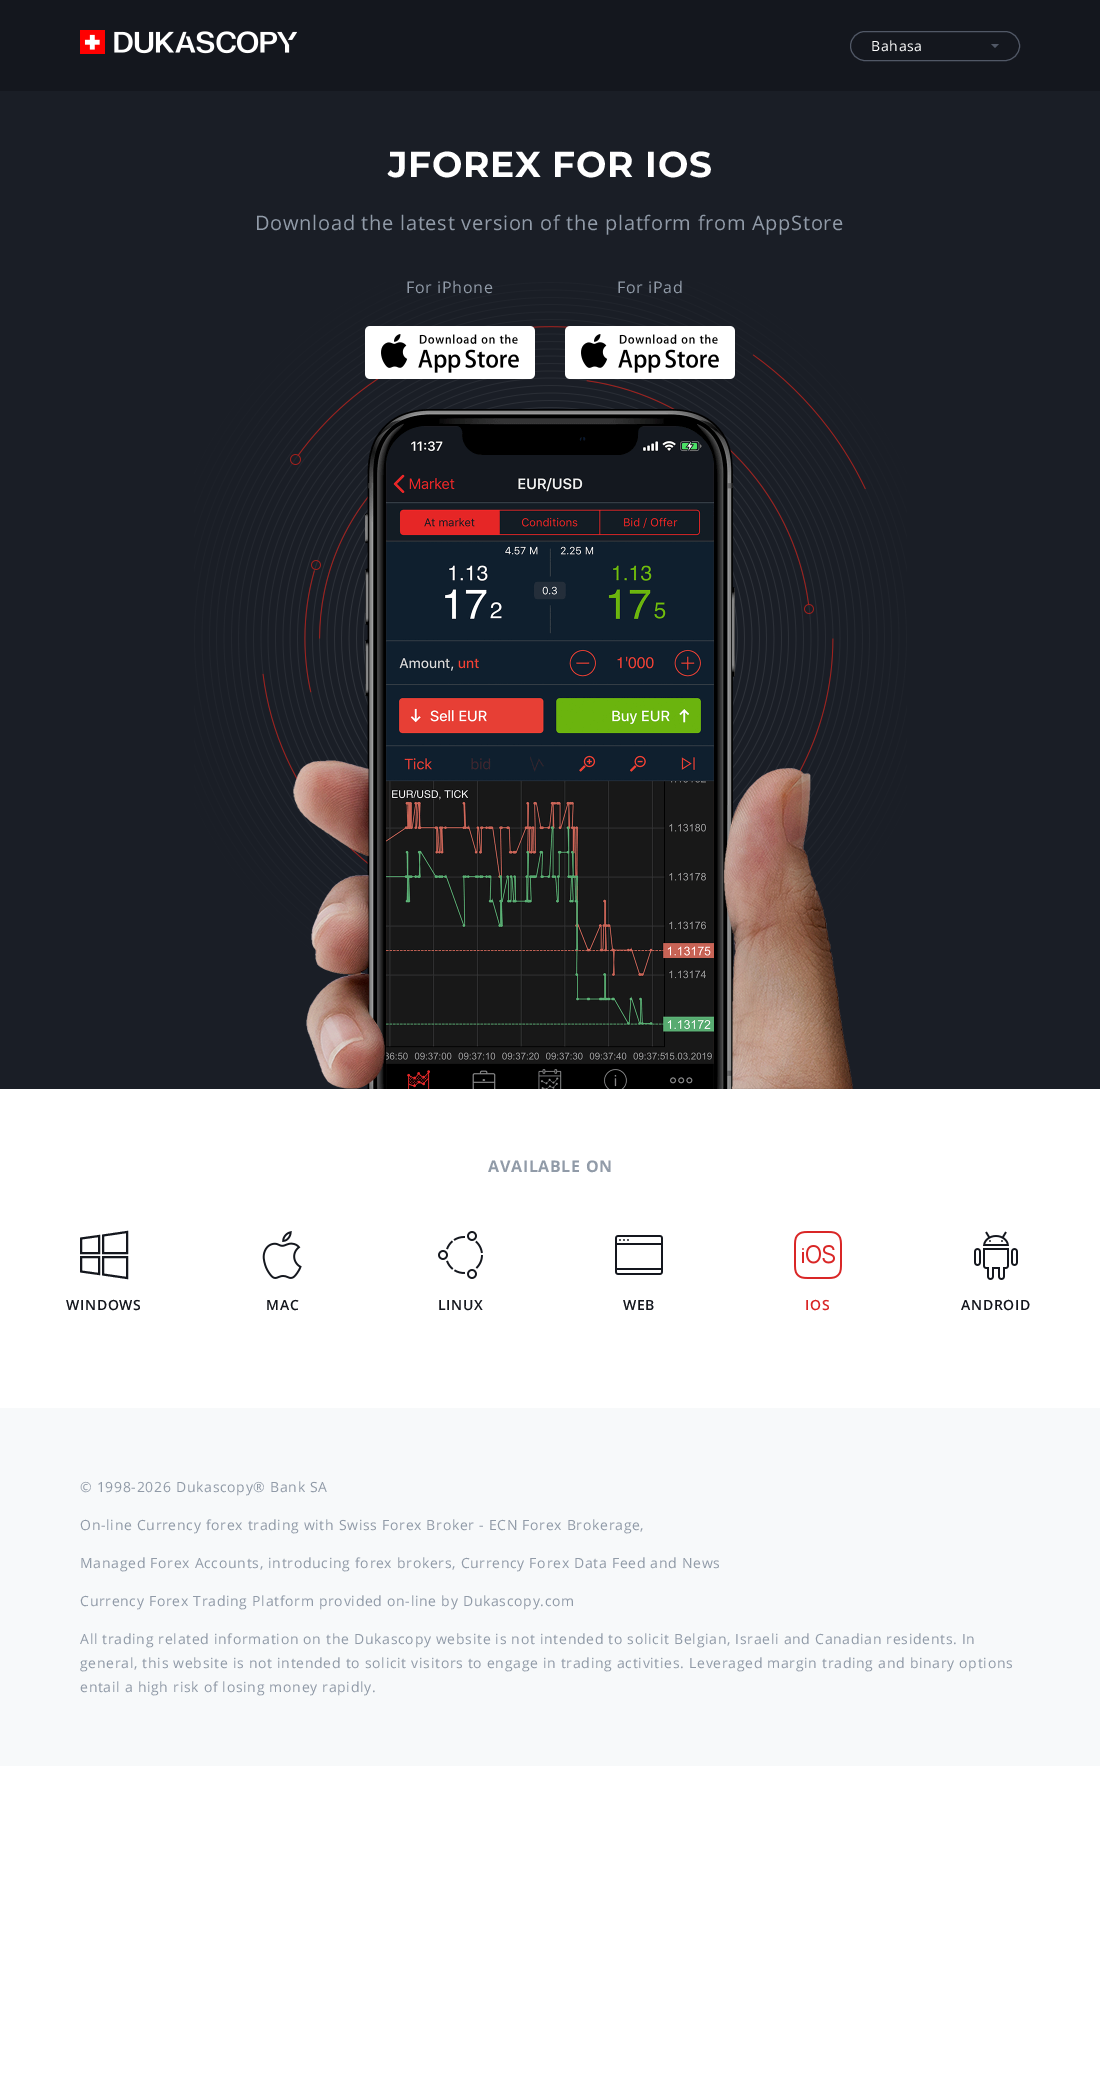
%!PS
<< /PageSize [1100 2088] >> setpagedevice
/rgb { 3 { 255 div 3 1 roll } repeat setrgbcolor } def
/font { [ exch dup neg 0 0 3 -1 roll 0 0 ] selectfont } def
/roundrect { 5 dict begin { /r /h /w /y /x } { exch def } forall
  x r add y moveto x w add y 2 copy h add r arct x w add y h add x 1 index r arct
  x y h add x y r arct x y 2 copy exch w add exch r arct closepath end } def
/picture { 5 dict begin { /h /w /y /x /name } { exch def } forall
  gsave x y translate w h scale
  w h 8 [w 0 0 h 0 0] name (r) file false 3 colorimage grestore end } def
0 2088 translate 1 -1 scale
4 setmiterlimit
255 255 255 rgb
0 0 1100 2088 rectfill
20 23 30 rgb
0 0 1100 91 rectfill
(img_01.rgb) 80 30 217 24 picture
81 88 102 rgb
850.5 31.5 169 29 14.5 roundrect stroke
991 44 moveto 8 0 rlineto -4 4 rlineto closepath fill
26 30 38 rgb
0 91 1100 998 rectfill
(img_02.rgb) 194 282 713 697 picture
(img_03.rgb) 365 326 170 53 picture
(img_04.rgb) 565 326 170 53 picture
(img_05.rgb) 365 409 370 680 picture
(img_06.rgb) 293 760 92 329 picture
(img_07.rgb) 723 768 130 321 picture
20 23 30 rgb
2 setlinewidth
81 1253 moveto 0 -14.5 rlineto 18 -2.5 rlineto 0 17 rlineto closepath 81 1257 moveto 18 0 rlineto 0 17 rlineto -18 -2.5 rlineto closepath 103 1253 moveto 0 -17.5 rlineto 24 -3.5 rlineto 0 21 rlineto closepath 103 1257 moveto 24 0 rlineto 0 21 rlineto -24 -3.5 rlineto closepath stroke
(img_08.rgb) 262 1231 40 48 picture
(img_09.rgb) 438 1231 45 48 picture
(img_10.rgb) 615 1235 48 40 picture
(img_11.rgb) 794 1231 48 48 picture
(img_12.rgb) 974 1231 44 49 picture
247 249 250 rgb
0 1408 1100 358 rectfill
/OpenSans-Regular 14 font
255 255 255 rgb
871 51 moveto 0.7 0 (Bahasa) ashow
/Montserrat-Bold 36 font
388 177 moveto 0.7 0 (JFOREX FOR IOS) ashow
/OpenSans-Regular 20 font
145 155 168 rgb
255 230 moveto 0.7 0 (Download the latest version of the platform from AppStore) ashow
/OpenSans-Regular 16 font
406 293 moveto 0.7 0 (For iPhone) ashow
617 293 moveto 0.7 0 (For iPad) ashow
/OpenSans-Bold 16 font
488 1172 moveto 0.7 0 (AVAILABLE ON) ashow
/OpenSans-SemiBold 14 font
20 23 30 rgb
66 1310 moveto 0.7 0 (WINDOWS) ashow
266 1310 moveto 0.7 0 (MAC) ashow
438 1310 moveto 0.7 0 (LINUX) ashow
623 1310 moveto 0.7 0 (WEB) ashow
217 38 38 rgb
805 1310 moveto 0.7 0 (IOS) ashow
20 23 30 rgb
961 1310 moveto 0.7 0 (ANDROID) ashow
/OpenSans-Regular 14 font
145 155 168 rgb
80 1492 moveto 0.7 0 (© 1998-2026 Dukascopy® Bank SA) ashow
80 1530 moveto 0.7 0 (On-line Currency forex trading with Swiss Forex Broker - ECN Forex Brokerage,) ashow
80 1568 moveto 0.7 0 (Managed Forex Accounts, introducing forex brokers, Currency Forex Data Feed and News) ashow
80 1606 moveto 0.7 0 (Currency Forex Trading Platform provided on-line by Dukascopy.com) ashow
80 1644 moveto 0.7 0 (All trading related information on the Dukascopy website is not intended to solicit Belgian, Israeli and Canadian residents. In) ashow
80 1668 moveto 0.7 0 (general, this website is not intended to solicit visitors to engage in trading activities. Leveraged margin trading and binary options) ashow
80 1692 moveto 0.7 0 (entail a high risk of losing money rapidly.) ashow
showpage
